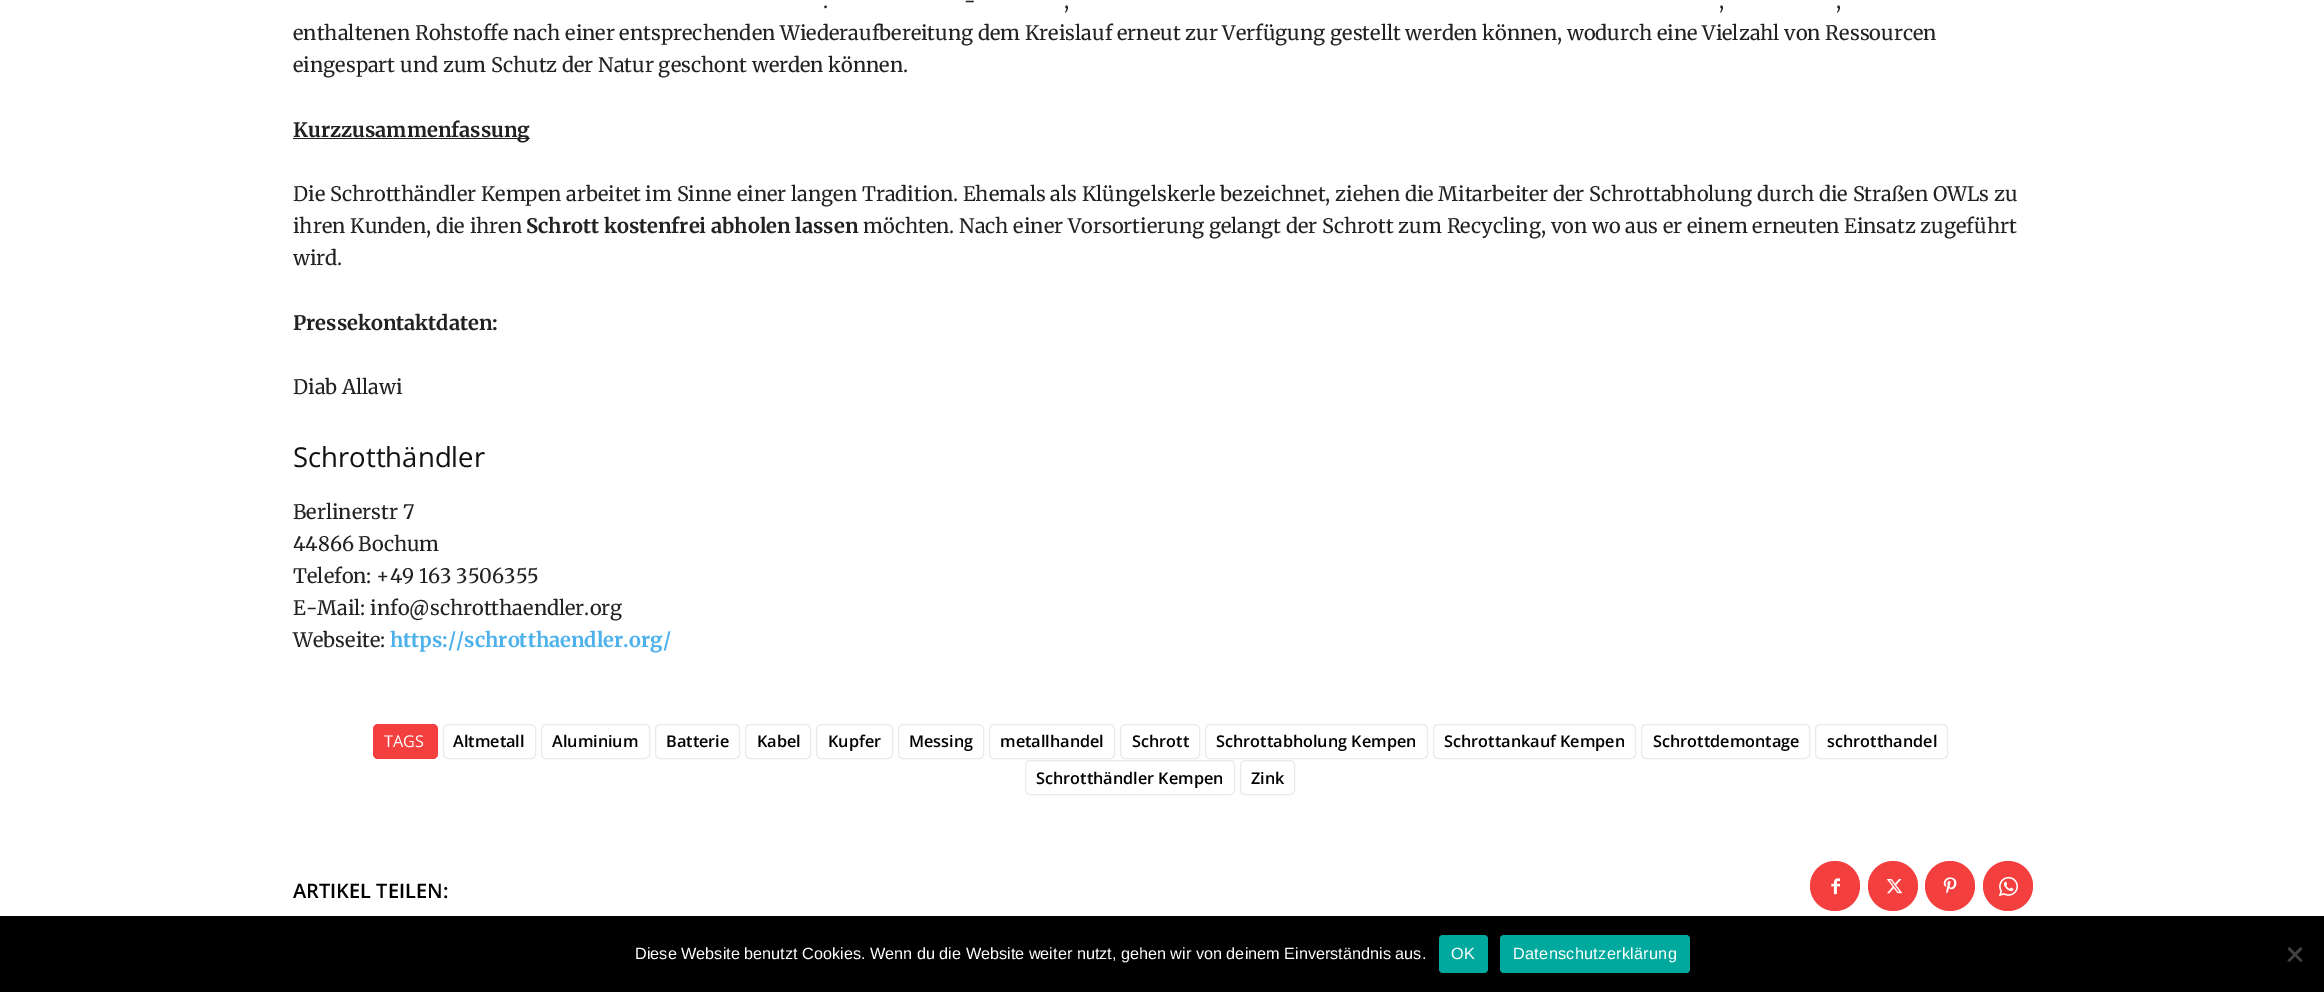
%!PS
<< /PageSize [2324 992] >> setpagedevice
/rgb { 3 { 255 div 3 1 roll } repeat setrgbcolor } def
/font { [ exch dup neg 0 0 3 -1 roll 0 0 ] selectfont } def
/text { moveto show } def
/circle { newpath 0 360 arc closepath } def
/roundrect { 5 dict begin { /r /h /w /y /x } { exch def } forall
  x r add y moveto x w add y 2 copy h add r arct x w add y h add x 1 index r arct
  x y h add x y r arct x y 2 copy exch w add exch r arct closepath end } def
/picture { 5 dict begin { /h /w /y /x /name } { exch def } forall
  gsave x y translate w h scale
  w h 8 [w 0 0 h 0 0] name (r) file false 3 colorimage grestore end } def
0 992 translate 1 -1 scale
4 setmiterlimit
255 255 255 rgb
0 0 2324 992 rectfill
34 34 34 rgb
293 138 237 1 rectfill
244 63 63 rgb
373 724 65 35 5 roundrect fill
234 234 234 rgb
443.5 724.5 92 34 4.5 roundrect stroke
541.5 724.5 108 34 4.5 roundrect stroke
655.5 724.5 84 34 4.5 roundrect stroke
745.5 724.5 65 34 4.5 roundrect stroke
816.5 724.5 76 34 4.5 roundrect stroke
898.5 724.5 85 34 4.5 roundrect stroke
989.5 724.5 125 34 4.5 roundrect stroke
1120.5 724.5 79 34 4.5 roundrect stroke
1205.5 724.5 222 34 4.5 roundrect stroke
1433.5 724.5 202 34 4.5 roundrect stroke
1641.5 724.5 168 34 4.5 roundrect stroke
1815.5 724.5 132 34 4.5 roundrect stroke
1025.5 760.5 209 34 4.5 roundrect stroke
1240.5 760.5 54 34 4.5 roundrect stroke
244 63 63 rgb
1835 886 25 circle fill
(img_01.rgb) 1831 878 9 17 picture
1893 886 25 circle fill
(img_02.rgb) 1886 879 17 15 picture
1950 886 25 circle fill
(img_03.rgb) 1943 877 14 17 picture
2008 886 25 circle fill
(img_04.rgb) 1998 876 20 21 picture
0 0 0 rgb
0 916 2324 76 rectfill
0 169 157 rgb
1439 935 49 38 4 roundrect fill
1500 935 190 38 4 roundrect fill
64 64 64 rgb
2300.5 947 moveto 2 2 rlineto -13 13 rlineto -2 -1.5 rlineto closepath fill
2287.5 949 moveto 2 -2 rlineto 13 13.5 rlineto -2 1.5 rlineto closepath fill
/Merriweather-Regular 20 font
34 34 34 rgb
(-) 964 8 text
(.) 823 8 text
(,) 1064 8 text
(,) 1719 8 text
(,) 1836 8 text
(enthaltenen Rohstoffe nach einer entsprechenden Wiederaufbereitung dem Kreislauf erneut zur Verfügung gestellt werden können, wodurch eine Vielzahl von Ressourcen) 293 40 text
(eingespart und zum Schutz der Natur geschont werden können.) 293 72 text
/Merriweather-Bold 20 font
(Kurzzusammenfassung) 293 137 text
/Merriweather-Regular 20 font
(Die Schrotthändler Kempen arbeitet im Sinne einer langen Tradition. Ehemals als Klüngelskerle bezeichnet, ziehen die Mitarbeiter der Schrottabholung durch die Straßen OWLs zu) 293 201 text
(ihren Kunden, die ihren) 293 233 text
/Merriweather-Bold 20 font
(Schrott kostenfrei abholen lassen) 526 233 text
/Merriweather-Regular 20 font
(möchten. Nach einer Vorsortierung gelangt der Schrott zum Recycling, von wo aus er einem erneuten Einsatz zugeführt) 863 233 text
(wird.) 293 265 text
/Merriweather-Bold 20 font
(Pressekontaktdaten:) 293 330 text
/Merriweather-Regular 20 font
(Diab Allawi) 293 394 text
/OpenSans-Regular 27.5 font
17 17 17 rgb
(Schrotthändler) 293 467 text
/Merriweather-Regular 20 font
34 34 34 rgb
(Berlinerstr 7) 293 519 text
(44866 Bochum) 293 551 text
(Telefon: +49 163 3506355) 293 583 text
(E-Mail: info@schrotthaendler.org) 293 615 text
(Webseite:) 293 647 text
/Merriweather-Bold 20 font
77 178 236 rgb
(https://schrotthaendler.org/) 390 647 text
/OpenSans-Regular 16.25 font
255 255 255 rgb
(TAGS) 384 747 text
/OpenSans-SemiBold 16.25 font
0 0 0 rgb
(Altmetall) 453 747 text
(Aluminium) 552 747 text
(Batterie) 666 747 text
(Kabel) 757 747 text
(Kupfer) 828 747 text
(Messing) 909 747 text
(metallhandel) 1000 747 text
(Schrott) 1132 747 text
(Schrottabholung Kempen) 1216 747 text
(Schrottankauf Kempen) 1444 747 text
(Schrottdemontage) 1653 747 text
(schrotthandel) 1827 747 text
(Schrotthändler Kempen) 1036 784 text
(Zink) 1251 784 text
/OpenSans-SemiBold 20 font
(ARTIKEL TEILEN:) 293 898 text
/LiberationSans-Regular 16.25 font
255 255 255 rgb
(Diese Website benutzt Cookies. Wenn du die Website weiter nutzt, gehen wir von deinem Einverständnis aus.) 635 959 text
1451 959 moveto 0.3 0 (OK) ashow
1513 959 moveto 0.3 0 (Datenschutzerklärung) ashow
showpage
